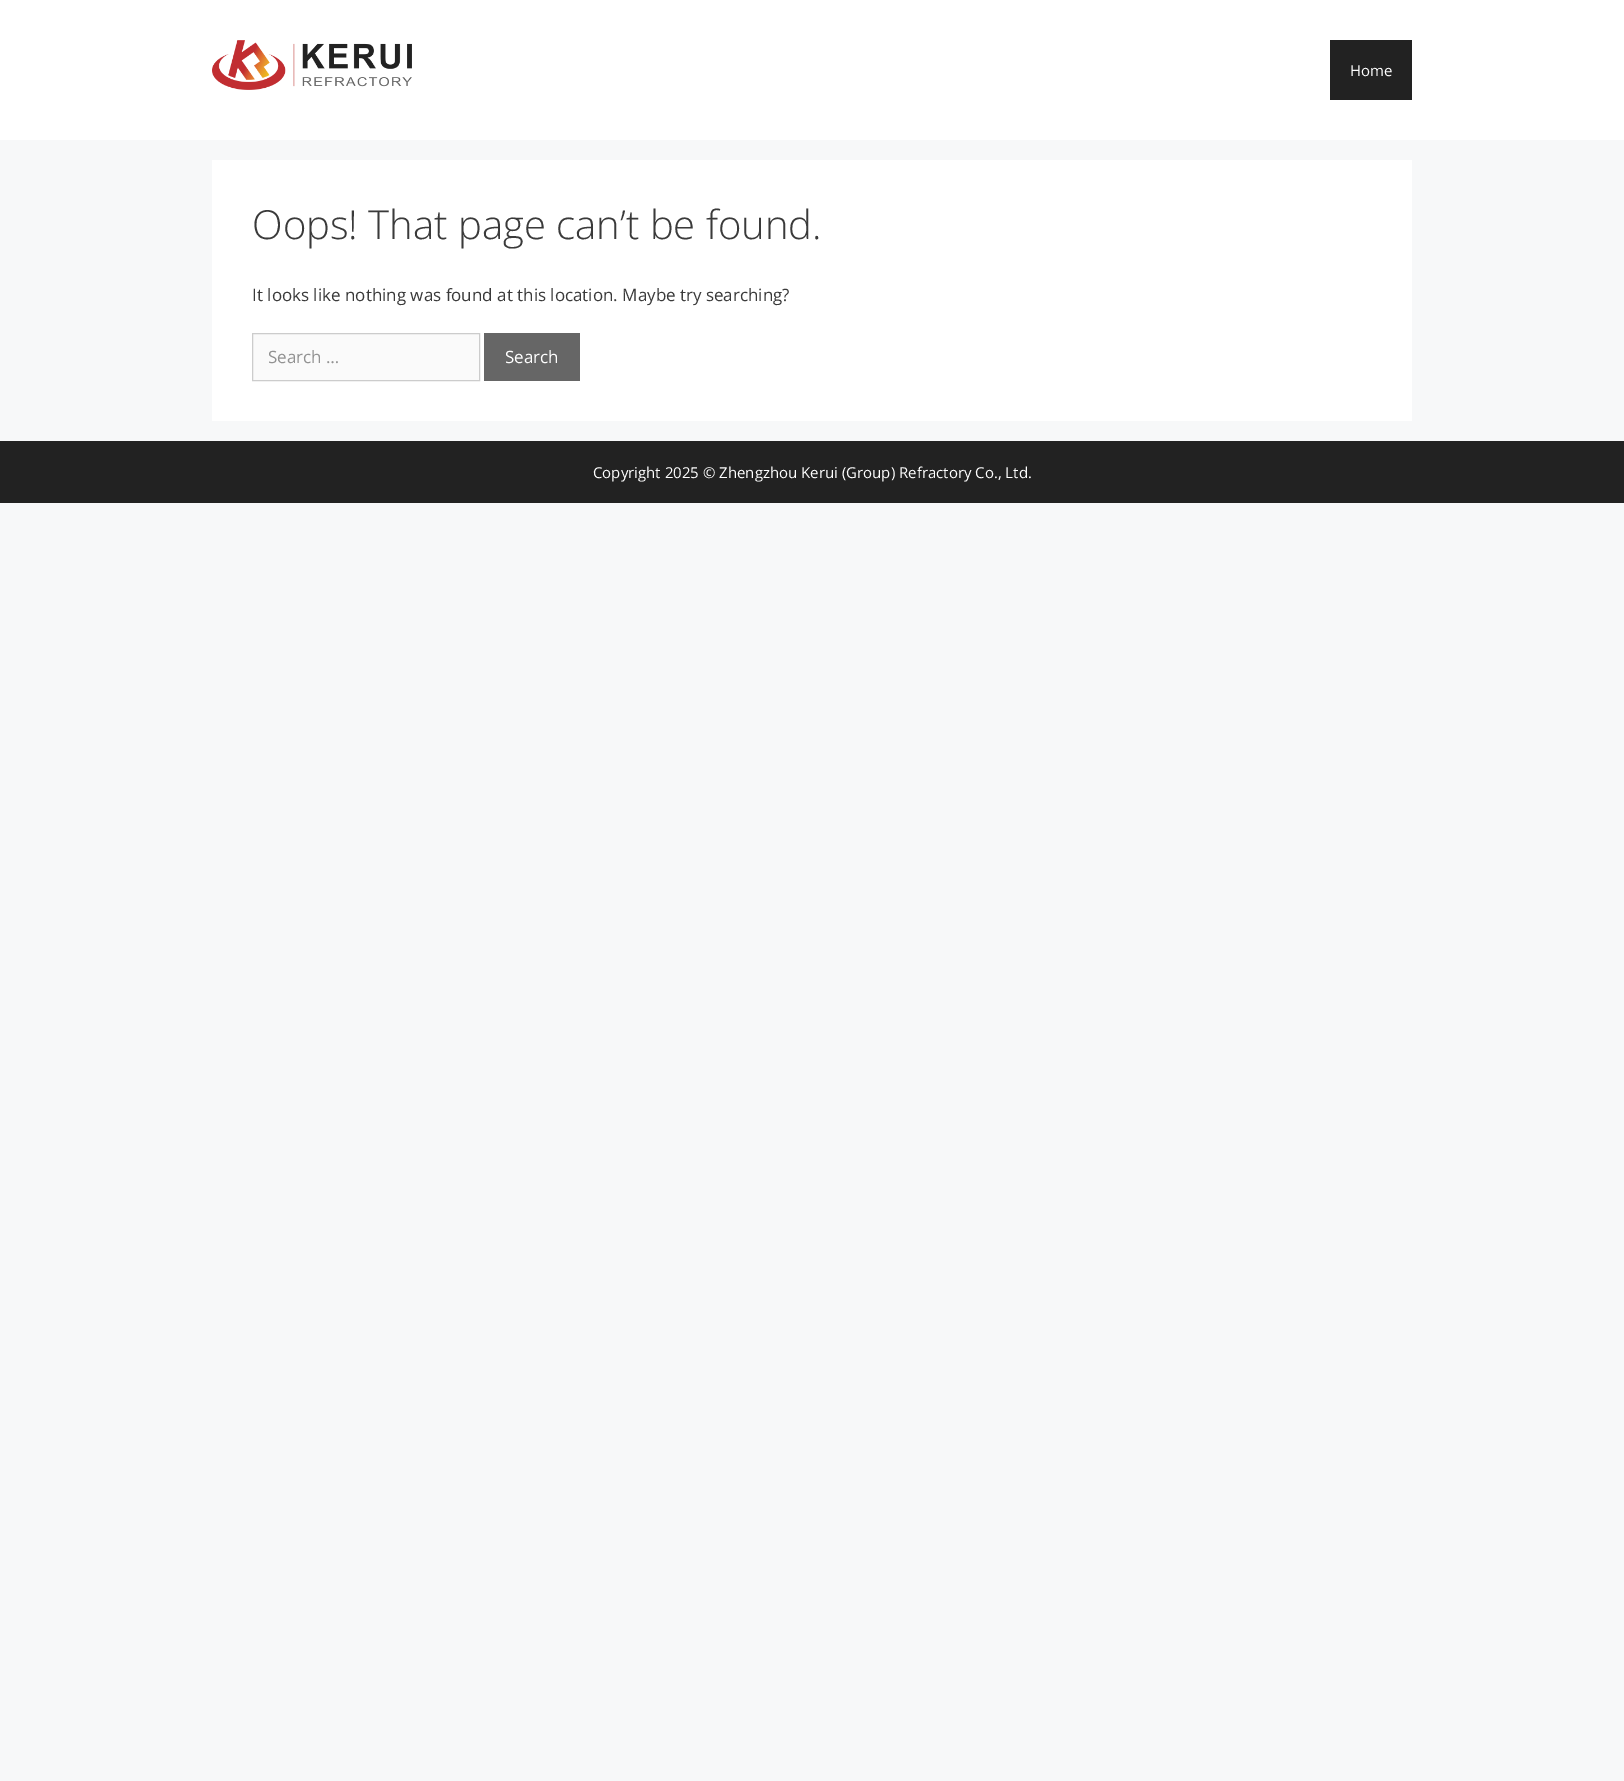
%!PS
<< /PageSize [1624 1781] >> setpagedevice
/rgb { 3 { 255 div 3 1 roll } repeat setrgbcolor } def
/font { [ exch dup neg 0 0 3 -1 roll 0 0 ] selectfont } def
/text { moveto show } def
/picture { 5 dict begin { /h /w /y /x /name } { exch def } forall
  gsave x y translate w h scale
  w h 8 [w 0 0 h 0 0] name (r) file false 3 colorimage grestore end } def
0 1781 translate 1 -1 scale
4 setmiterlimit
247 248 249 rgb
0 0 1624 1781 rectfill
255 255 255 rgb
0 0 1624 140 rectfill
(img_01.rgb) 212 40 200 50 picture
34 34 34 rgb
1330 40 82 60 rectfill
255 255 255 rgb
212 160 1200 261 rectfill
250 250 250 rgb
252.5 333.5 moveto 227 0 rlineto 0 47 rlineto -227 0 rlineto closepath gsave fill grestore
204 204 204 rgb
stroke
102 102 102 rgb
484 333 96 48 rectfill
34 34 34 rgb
0 441 1624 62 rectfill
/OpenSans-Regular 15 font
255 255 255 rgb
(Home) 1350 76 text
/OpenSans-Light 40 font
58 58 58 rgb
(Oops! That page can’t be found.) 252 239 text
/OpenSans-Regular 17 font
(It looks like nothing was found at this location. Maybe try searching?) 252 301 text
146 146 146 rgb
(Search …) 268 363 text
255 255 255 rgb
(Search) 505 363 text
/OpenSans-Regular 15 font
(Copyright 2025 © Zhengzhou Kerui \(Group\) Refractory Co., Ltd.) 593 478 text
showpage
